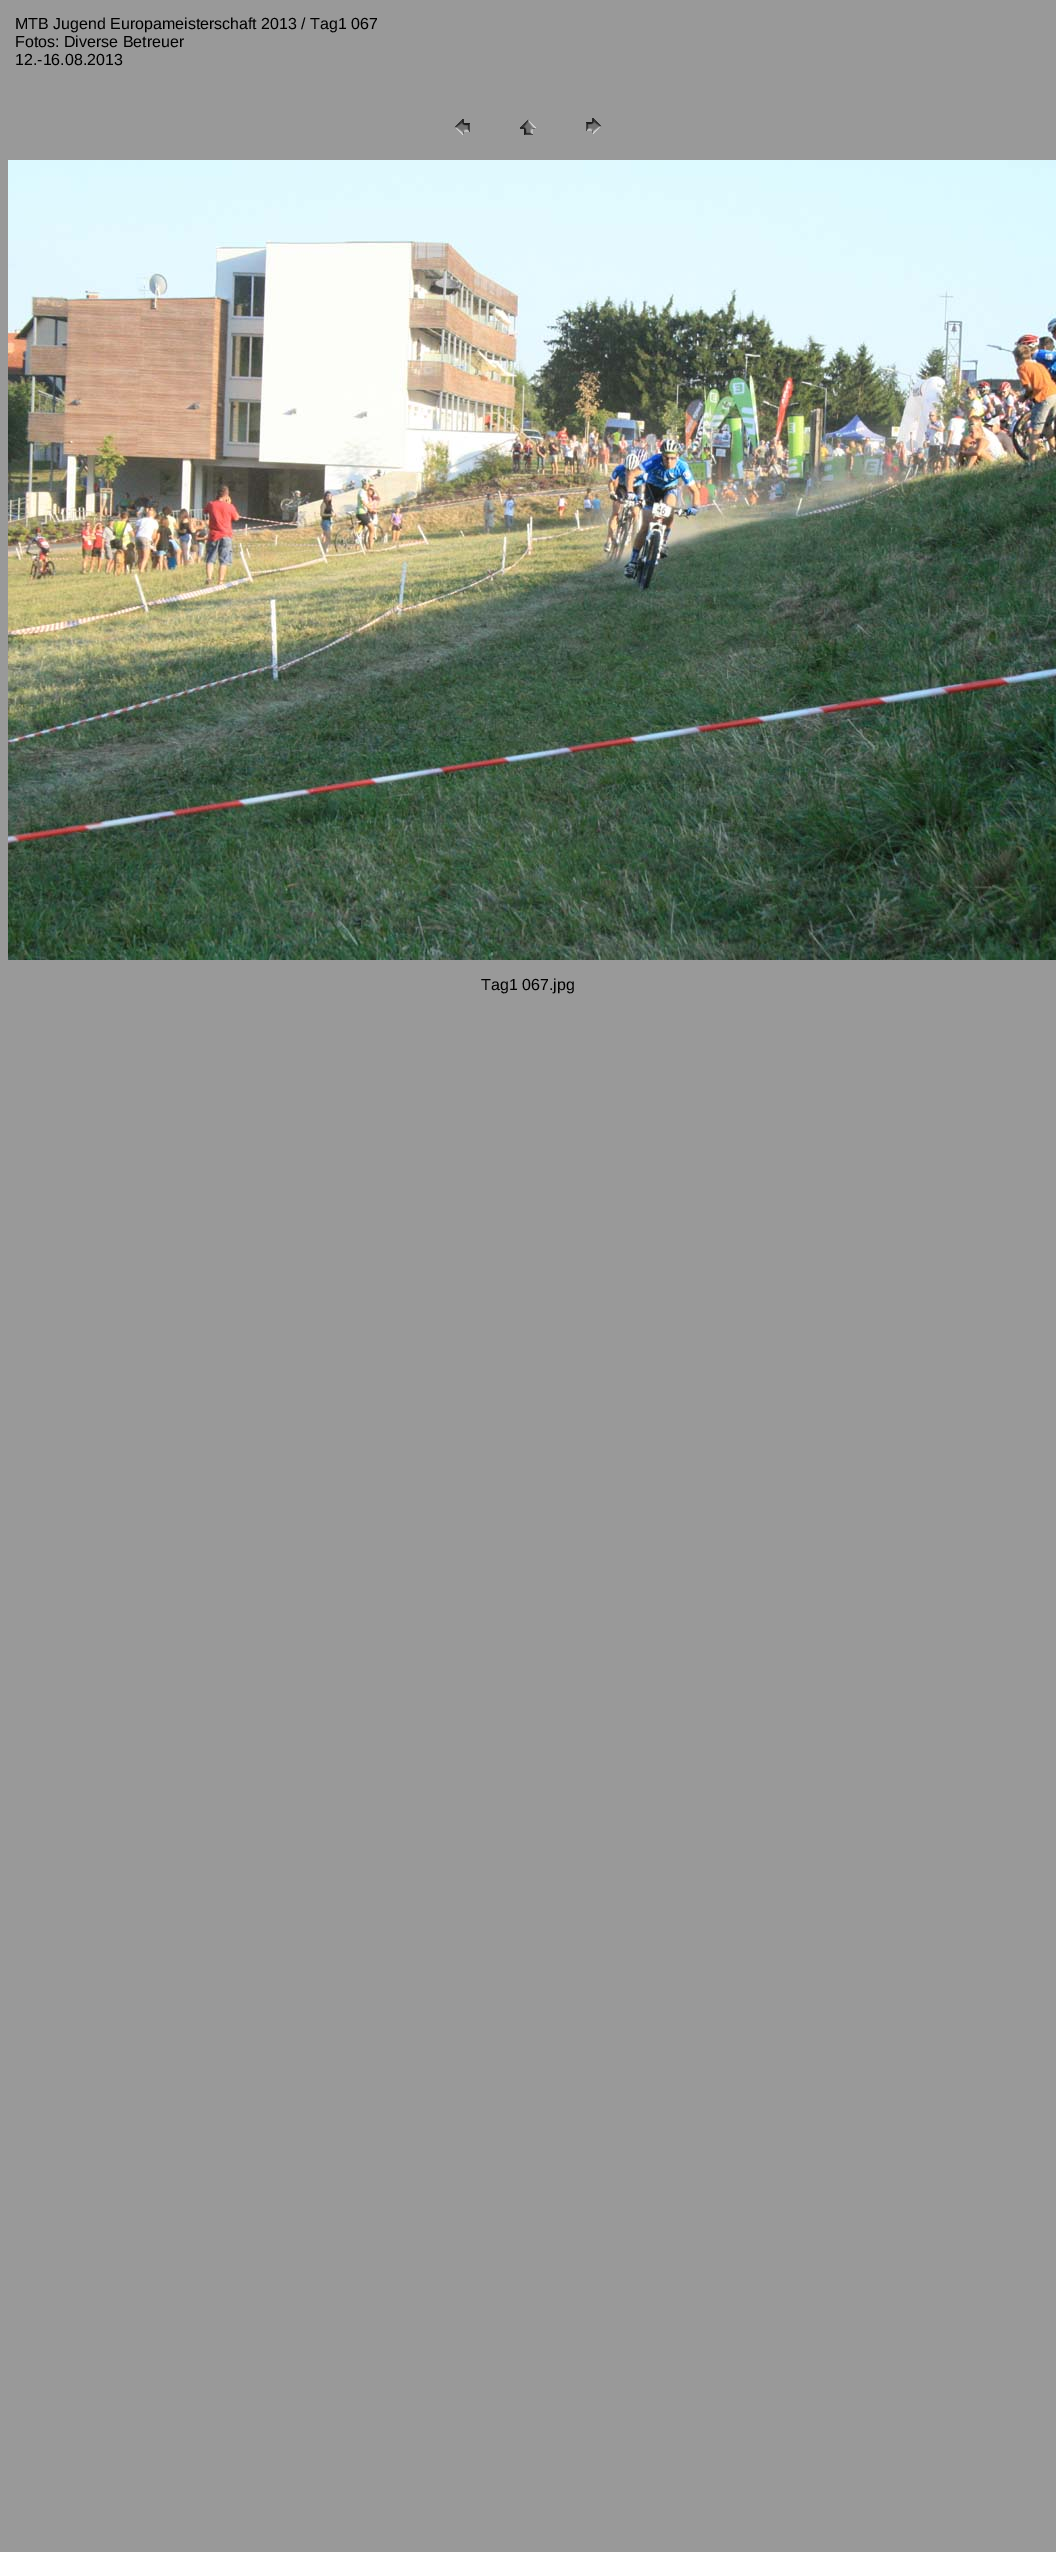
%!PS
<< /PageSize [1056 2552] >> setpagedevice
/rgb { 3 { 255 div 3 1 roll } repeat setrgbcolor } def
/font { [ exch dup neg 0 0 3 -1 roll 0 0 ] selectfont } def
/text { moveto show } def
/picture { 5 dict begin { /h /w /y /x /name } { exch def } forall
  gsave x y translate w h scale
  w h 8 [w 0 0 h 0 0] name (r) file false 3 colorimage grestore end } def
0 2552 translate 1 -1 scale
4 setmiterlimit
153 153 153 rgb
0 0 1056 2552 rectfill
(img_01.rgb) 454 119 16 16 picture
(img_02.rgb) 520 119 16 16 picture
(img_03.rgb) 586 118 16 16 picture
(img_04.rgb) 8 160 1048 800 picture
/LiberationSans-Regular 16 font
0 0 0 rgb
(MTB Jugend Europameisterschaft 2013 / Tag1 067) 15 29 text
(Fotos: Diverse Betreuer) 15 47 text
(12.-16.08.2013) 15 65 text
(Tag1 067.jpg) 481 990 text
showpage
